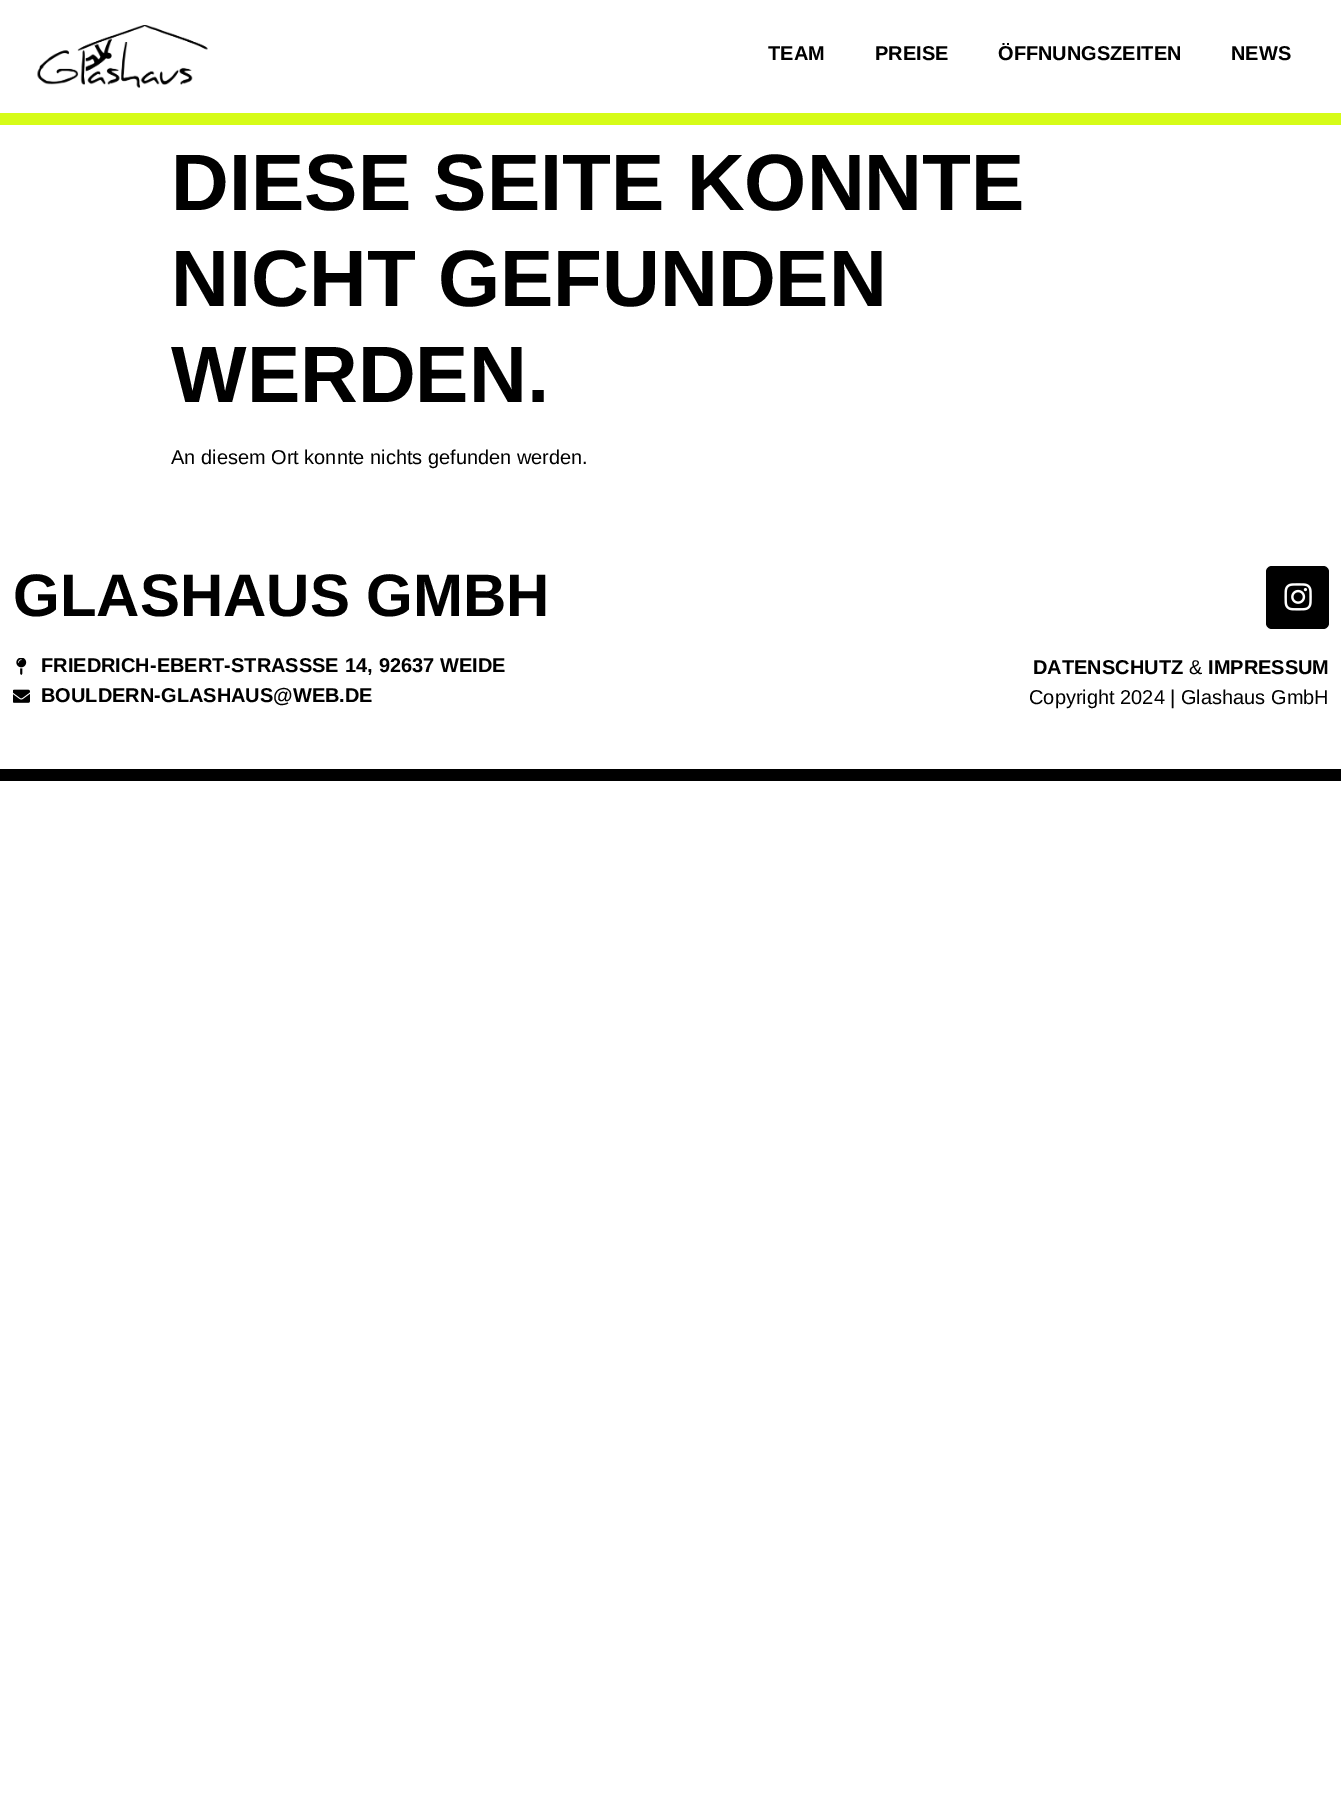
%!PS
<< /PageSize [1341 1794] >> setpagedevice
/rgb { 3 { 255 div 3 1 roll } repeat setrgbcolor } def
/font { [ exch dup neg 0 0 3 -1 roll 0 0 ] selectfont } def
/text { moveto show } def
/roundrect { 5 dict begin { /r /h /w /y /x } { exch def } forall
  x r add y moveto x w add y 2 copy h add r arct x w add y h add x 1 index r arct
  x y h add x y r arct x y 2 copy exch w add exch r arct closepath end } def
/picture { 5 dict begin { /h /w /y /x /name } { exch def } forall
  gsave x y translate w h scale
  w h 8 [w 0 0 h 0 0] name (r) file false 3 colorimage grestore end } def
0 1794 translate 1 -1 scale
4 setmiterlimit
255 255 255 rgb
0 0 1341 1794 rectfill
214 252 24 rgb
0 113 1341 12 rectfill
(img_01.rgb) 37 25 171 63 picture
0 0 0 rgb
0 769 1341 12 rectfill
(img_02.rgb) 16 658 11 17 picture
(img_03.rgb) 13 689 17 14 picture
1266 566 63 63 6 roundrect fill
(img_04.rgb) 1284 583 28 28 picture
/LiberationSans-Bold 20 font
(TEAM) 768 60 text
(PREISE) 875 60 text
(ÖFFNUNGSZEITEN) 998 60 text
(NEWS) 1231 60 text
/LiberationSans-Bold 80 font
(DIESE SEITE KONNTE) 171 210 text
(NICHT GEFUNDEN) 171 306 text
(WERDEN.) 171 402 text
/LiberationSans-Regular 20 font
(An diesem Ort konnte nichts gefunden werden.) 171 464 text
/LiberationSans-Bold 60 font
(GLASHAUS GMBH) 13 616 text
/LiberationSans-Bold 20 font
(FRIEDRICH-EBERT-STRASS) 41 672 text
312 672 moveto 0.5 0 32 (SE 14, 92637 WEIDE) widthshow
(BOULDERN-GLASHAUS@WEB.DE) 41 702 text
(DATENSCHUTZ) 1033 674 text
/LiberationSans-Regular 20 font
(&) 1189 674 text
/LiberationSans-Bold 20 font
(IMPRESSUM) 1208 674 text
/LiberationSans-Regular 20 font
(Copyright 2024 | Glashaus GmbH) 1029 704 text
showpage
